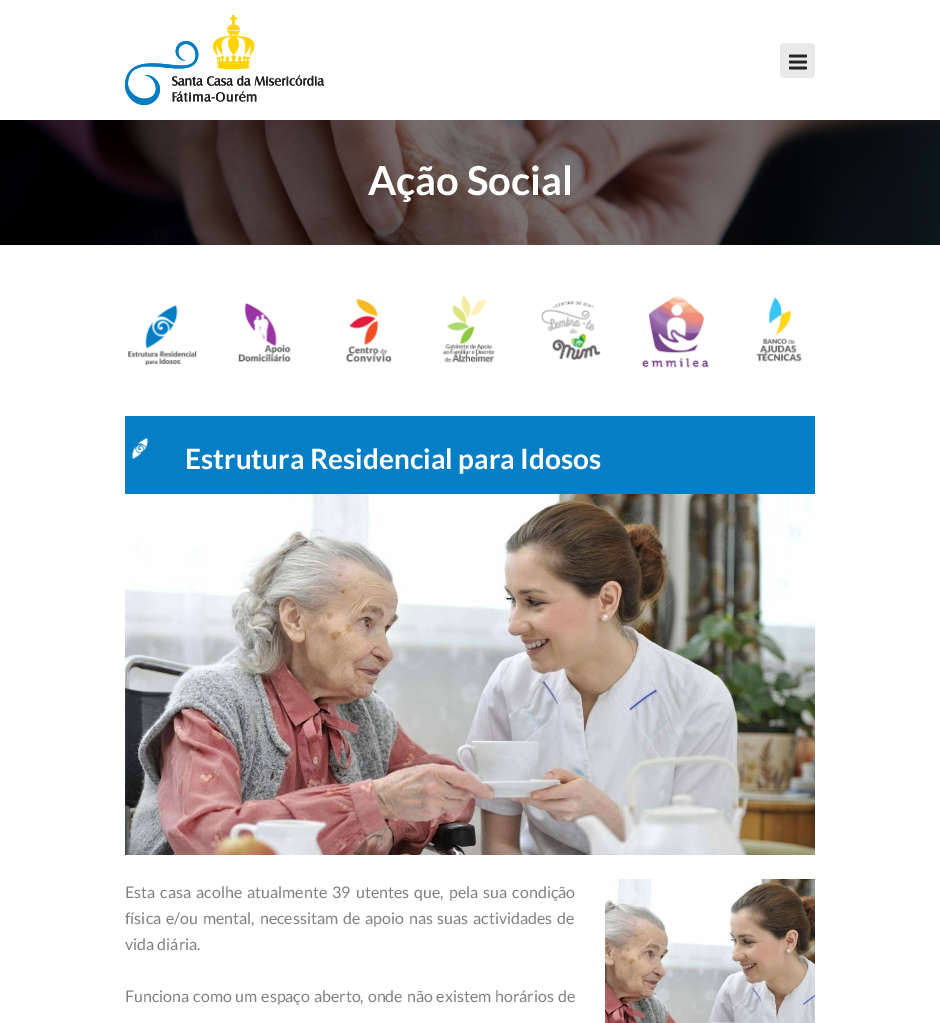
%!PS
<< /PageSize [940 1023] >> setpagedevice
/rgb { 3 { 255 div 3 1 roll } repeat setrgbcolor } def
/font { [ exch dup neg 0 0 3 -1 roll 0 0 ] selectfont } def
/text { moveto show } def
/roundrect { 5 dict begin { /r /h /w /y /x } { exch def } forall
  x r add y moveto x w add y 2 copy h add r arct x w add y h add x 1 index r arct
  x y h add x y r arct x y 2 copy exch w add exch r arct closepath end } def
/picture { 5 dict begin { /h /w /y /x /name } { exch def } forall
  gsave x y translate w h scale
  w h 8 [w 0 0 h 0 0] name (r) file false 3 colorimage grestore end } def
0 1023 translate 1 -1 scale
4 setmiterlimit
255 255 255 rgb
0 0 940 1023 rectfill
(img_01.rgb) 125 15 199 90 picture
233 233 233 rgb
780 43 35 35 4 roundrect fill
(img_02.rgb) 789 54 18 16 picture
(img_03.rgb) 0 120 940 125 picture
(img_04.rgb) 128 305 69 61 picture
(img_05.rgb) 238 302 53 61 picture
(img_06.rgb) 345 299 47 64 picture
(img_07.rgb) 442 295 53 68 picture
(img_08.rgb) 541 301 60 60 picture
(img_09.rgb) 642 295 67 73 picture
(img_10.rgb) 756 297 46 65 picture
4 126 196 rgb
125 416 690 78 rectfill
(img_11.rgb) 131 438 18 22 picture
(img_12.rgb) 125 494 690 361 picture
(img_13.rgb) 605 879 210 144 picture
/Lato-Bold 40 font
255 255 255 rgb
(Ação Social) 368 195 text
/Lato-Bold 28 font
(Estrutura Residencial para Idosos) 185 469 text
/Lato-Regular 16 font
129 129 129 rgb
125 898 moveto 2 0 32 (Esta casa acolhe atualmente 39 utentes que, pela sua condição) widthshow
125 924 moveto 1.75 0 32 (física e/ou mental, necessitam de apoio nas suas actividades de) widthshow
(vida diária.) 125 950 text
125 1002 moveto 0.75 0 32 (Funciona como um espaço aberto, onde não existem horários de) widthshow
showpage
